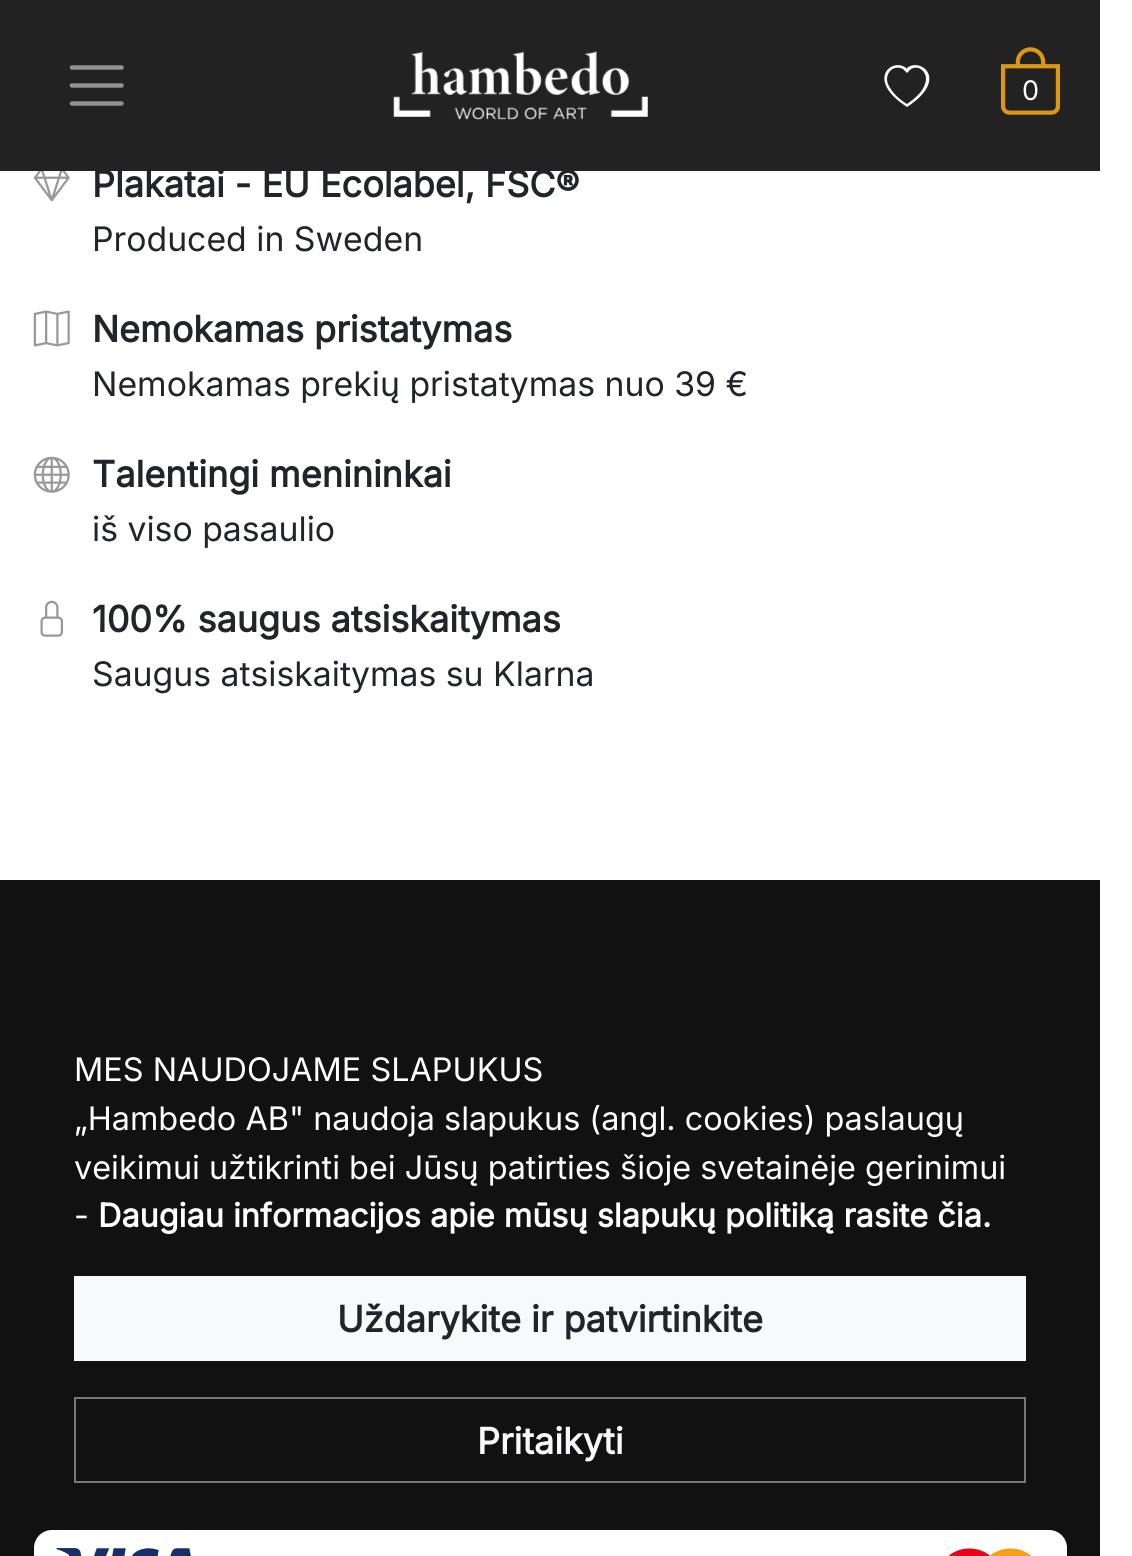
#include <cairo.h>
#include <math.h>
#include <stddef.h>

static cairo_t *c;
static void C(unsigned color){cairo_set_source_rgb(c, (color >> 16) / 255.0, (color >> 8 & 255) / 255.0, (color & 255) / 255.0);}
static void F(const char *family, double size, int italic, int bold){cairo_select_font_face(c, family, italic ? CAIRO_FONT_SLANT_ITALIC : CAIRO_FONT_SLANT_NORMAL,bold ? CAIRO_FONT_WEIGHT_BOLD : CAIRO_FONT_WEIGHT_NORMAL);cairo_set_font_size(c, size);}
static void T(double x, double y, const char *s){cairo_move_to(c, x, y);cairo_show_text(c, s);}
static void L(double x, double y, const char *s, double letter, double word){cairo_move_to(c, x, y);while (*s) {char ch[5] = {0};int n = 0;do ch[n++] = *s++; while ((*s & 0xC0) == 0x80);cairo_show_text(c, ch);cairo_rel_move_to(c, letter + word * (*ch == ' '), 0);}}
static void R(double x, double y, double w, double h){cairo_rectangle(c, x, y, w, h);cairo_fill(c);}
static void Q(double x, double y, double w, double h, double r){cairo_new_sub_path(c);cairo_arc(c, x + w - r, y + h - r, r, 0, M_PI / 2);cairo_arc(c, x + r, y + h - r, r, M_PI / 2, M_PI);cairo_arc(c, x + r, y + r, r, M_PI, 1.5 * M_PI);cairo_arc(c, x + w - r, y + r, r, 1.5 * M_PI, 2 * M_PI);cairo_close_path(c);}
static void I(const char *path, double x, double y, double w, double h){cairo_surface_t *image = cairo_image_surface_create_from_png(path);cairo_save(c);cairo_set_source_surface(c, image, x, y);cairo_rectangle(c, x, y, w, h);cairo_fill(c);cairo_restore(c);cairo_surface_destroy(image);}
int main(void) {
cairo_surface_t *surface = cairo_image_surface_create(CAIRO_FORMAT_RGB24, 1132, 1556);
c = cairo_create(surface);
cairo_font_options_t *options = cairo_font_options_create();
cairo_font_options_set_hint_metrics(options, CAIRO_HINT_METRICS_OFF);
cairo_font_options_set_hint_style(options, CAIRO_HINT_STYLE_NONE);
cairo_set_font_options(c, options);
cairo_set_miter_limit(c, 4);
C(0xffffff);
cairo_paint(c);
F("Inter",36,0,1);
C(0x212529);
T(92,197,"Plakatai - EU Ecolabel, FSC®");
C(0x222222);
R(0,0,1100,171);
cairo_new_path(c);
cairo_move_to(c,72,67.5);
cairo_line_to(c,121.5,67.5);
cairo_move_to(c,72,85.5);
cairo_line_to(c,121.5,85.5);
cairo_move_to(c,72,103.5);
cairo_line_to(c,121.5,103.5);
C(0x919191);
cairo_set_line_width(c,4.5);
cairo_set_line_cap(c,CAIRO_LINE_CAP_ROUND);
cairo_stroke(c);
I("1.png",393,51,255,69);
C(0xffffff);
cairo_new_path(c);
cairo_move_to(c,907,73);
cairo_line_to(c,903,69);
cairo_curve_to(c,893,64,884,74,888,84);
cairo_curve_to(c,892,93,899,99,907,104);
cairo_curve_to(c,914,99,922,93,925,84);
cairo_curve_to(c,929,74,920,64,911,69);
cairo_close_path(c);
cairo_move_to(c,907,107);
cairo_curve_to(c,864,79,893,57,906,68);
cairo_line_to(c,907,69);
cairo_line_to(c,907,68);
cairo_curve_to(c,920,57,950,79,907,107);
cairo_close_path(c);
cairo_fill(c);
I("2.png",1000,47,61,68);
F("Inter",27,0,0);
L(1022,100,"0",-1,0);
I("3.png",33,171,37,31);
F("Inter",33.75,0,0);
C(0x212529);
T(92,251,"Produced in Sweden");
I("4.png",33,310,37,37);
F("Inter",36,0,1);
T(92,342,"Nemokamas pristatymas");
F("Inter",33.75,0,0);
T(92,396,"Nemokamas prekių pristatymas nuo 39 €");
I("5.png",33,456,37,37);
F("Inter",36,0,1);
T(92,487,"Talentingi menininkai");
F("Inter",33.75,0,0);
T(92,541,"iš viso pasaulio");
I("6.png",40,600,23,37);
F("Inter",36,0,1);
T(92,632,"100% saugus atsiskaitymas");
F("Inter",33.75,0,0);
T(92,686,"Saugus atsiskaitymas su Klarna");
C(0x111111);
R(0,880,1100,676);
C(0xffffff);
Q(34,1530,1033,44,18);
cairo_fill(c);
I("7.png",56,1548,135,8);
I("8.png",948,1548,84,8);
F("Inter",32.4,0,0);
T(74,1081,"MES NAUDOJAME SLAPUKUS");
T(74,1130,"„Hambedo AB\" naudoja slapukus (angl. cookies) paslaugų");
T(74,1179,"veikimui užtikrinti bei Jūsų patirties šioje svetainėje gerinimui");
T(74,1227,"-");
F("Inter",32.4,0,1);
T(98,1227,"Daugiau informacijos apie mūsų slapukų politiką rasite čia.");
C(0xf8f9fa);
R(74,1276,952,85);
F("Inter",36,0,1);
C(0x212529);
T(337,1332,"Uždarykite ir patvirtinkite");
cairo_rectangle(c,75,1398,950,84);
C(0x787878);
cairo_set_line_width(c,2);
cairo_set_line_cap(c,CAIRO_LINE_CAP_BUTT);
cairo_stroke(c);
C(0xf8f9fa);
T(477,1454,"Pritaikyti");
cairo_surface_write_to_png(surface, "o.png");
cairo_font_options_destroy(options);
cairo_destroy(c);
cairo_surface_destroy(surface);
return 0;
}
